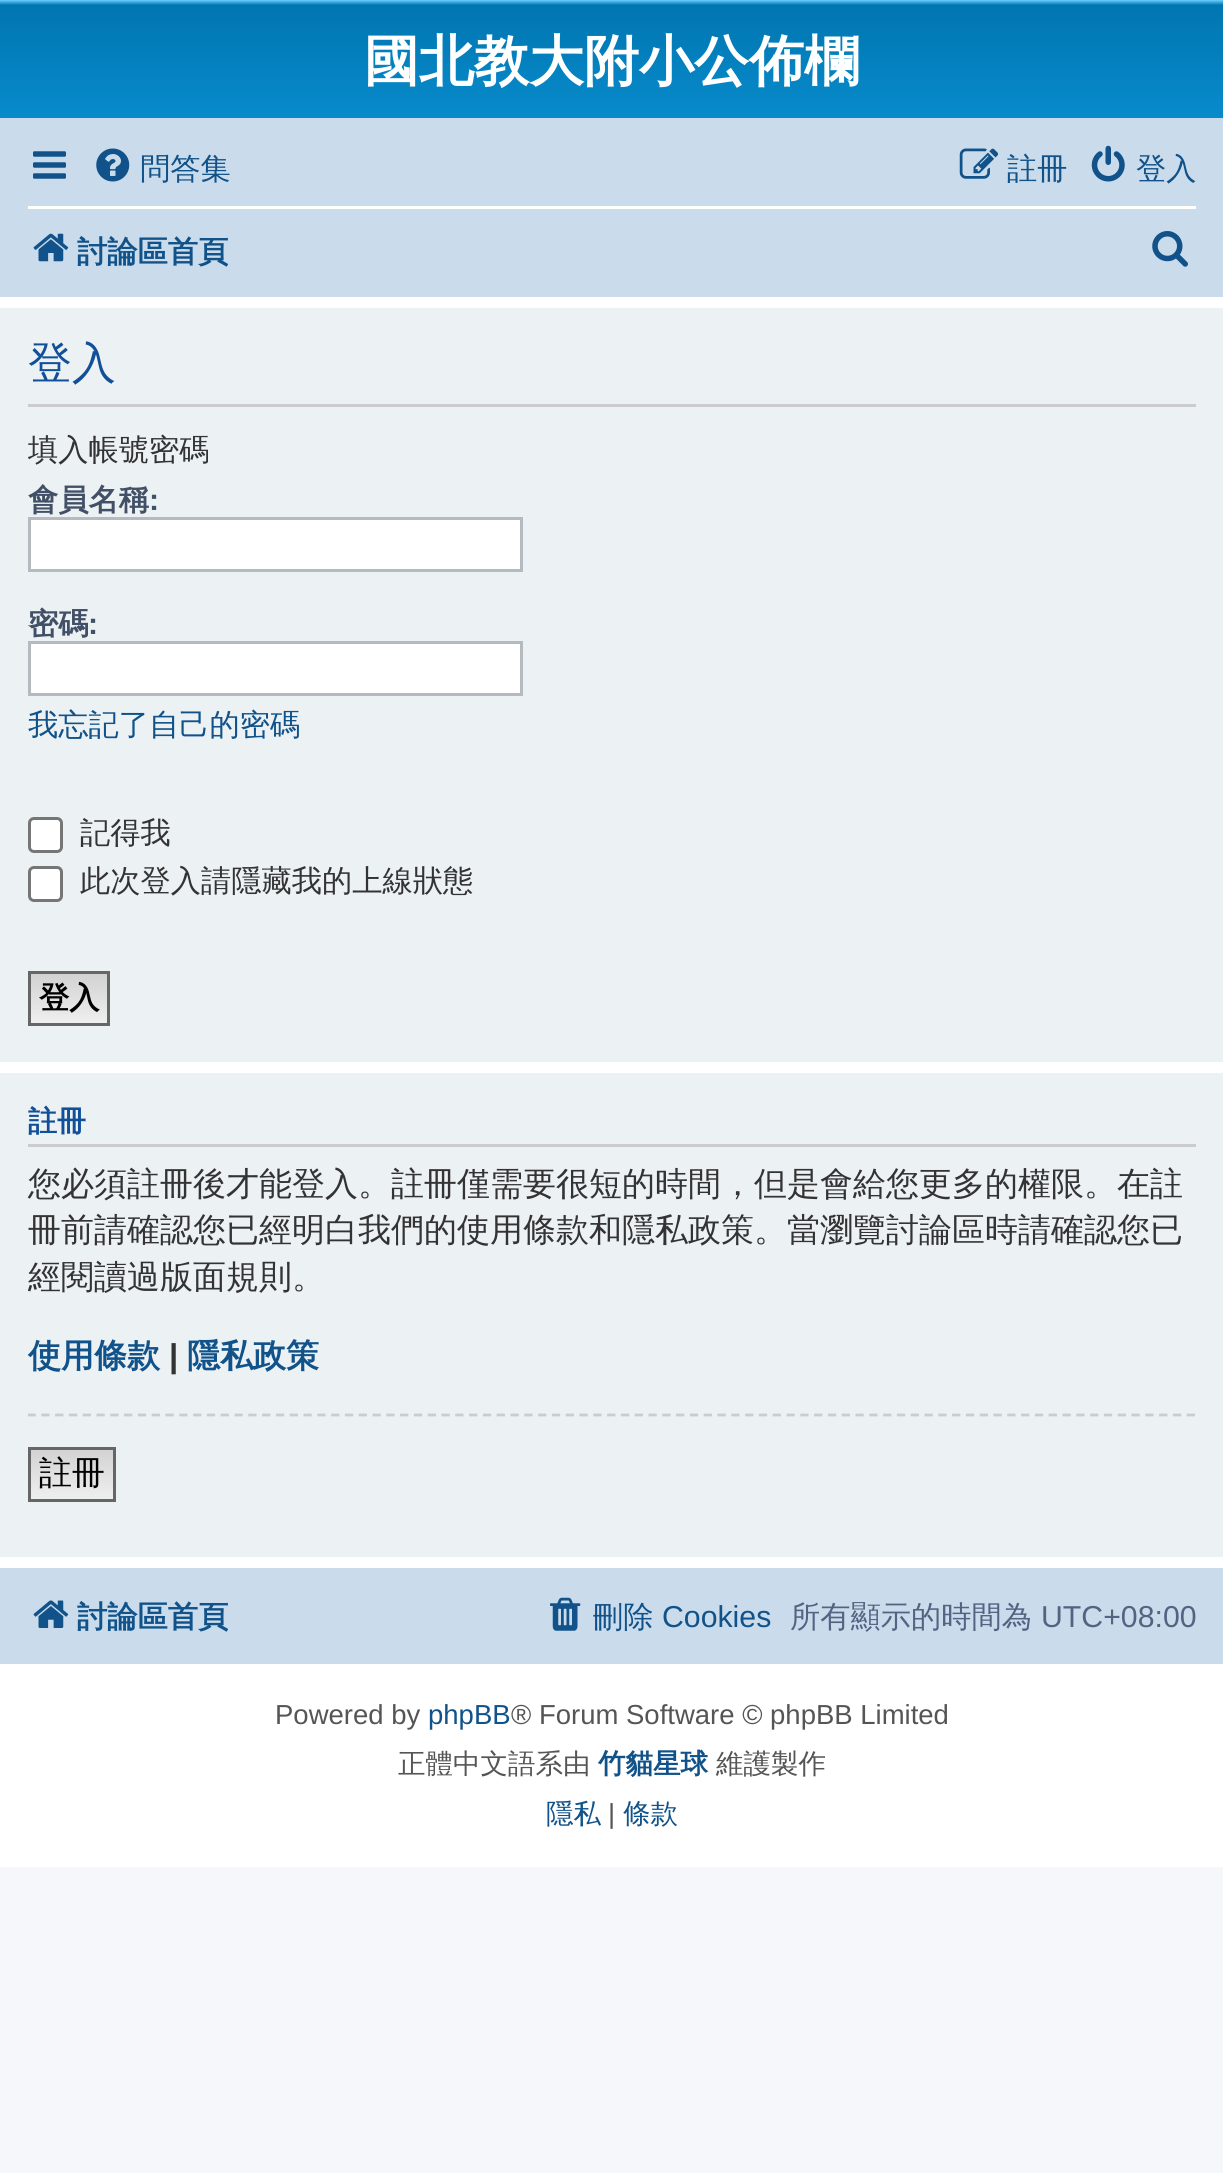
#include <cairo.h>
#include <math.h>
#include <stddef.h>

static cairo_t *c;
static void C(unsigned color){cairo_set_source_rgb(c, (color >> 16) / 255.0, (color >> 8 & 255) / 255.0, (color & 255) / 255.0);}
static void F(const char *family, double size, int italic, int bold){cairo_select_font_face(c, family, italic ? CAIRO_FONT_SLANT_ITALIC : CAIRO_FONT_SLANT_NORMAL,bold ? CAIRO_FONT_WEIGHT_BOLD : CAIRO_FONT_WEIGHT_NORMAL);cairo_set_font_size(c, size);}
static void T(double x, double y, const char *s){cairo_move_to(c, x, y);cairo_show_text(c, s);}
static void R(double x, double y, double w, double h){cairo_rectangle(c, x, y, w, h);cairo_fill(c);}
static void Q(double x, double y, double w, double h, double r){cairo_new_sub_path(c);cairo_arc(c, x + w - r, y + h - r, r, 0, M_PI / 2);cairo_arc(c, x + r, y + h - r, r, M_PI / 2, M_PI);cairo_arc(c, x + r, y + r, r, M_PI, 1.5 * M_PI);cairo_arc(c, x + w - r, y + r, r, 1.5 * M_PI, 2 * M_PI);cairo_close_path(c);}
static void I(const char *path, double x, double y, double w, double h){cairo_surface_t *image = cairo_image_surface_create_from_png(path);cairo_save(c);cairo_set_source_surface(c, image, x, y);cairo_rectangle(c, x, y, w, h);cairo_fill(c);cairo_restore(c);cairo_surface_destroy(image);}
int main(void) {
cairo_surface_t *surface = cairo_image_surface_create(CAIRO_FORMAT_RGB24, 1223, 2173);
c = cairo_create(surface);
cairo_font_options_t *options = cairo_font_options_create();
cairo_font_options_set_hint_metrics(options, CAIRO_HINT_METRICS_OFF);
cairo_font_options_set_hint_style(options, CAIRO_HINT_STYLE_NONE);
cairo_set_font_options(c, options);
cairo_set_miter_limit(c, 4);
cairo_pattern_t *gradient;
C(0xf5f7fa);
cairo_paint(c);
C(0xffffff);
R(0,297,1223,1570);
gradient = cairo_pattern_create_linear(612,0,612,253);
cairo_pattern_add_color_stop_rgba(gradient,0,0.416,0.808,1,1);
cairo_pattern_add_color_stop_rgba(gradient,.02,0,0.463,0.694,1);
cairo_pattern_add_color_stop_rgba(gradient,1,0.071,0.639,0.922,1);
cairo_set_source(c,gradient);
cairo_pattern_destroy(gradient);
R(0,0,1223,118);
F("WenQuanYi Zen Hei",55,0,1);
C(0xffffff);
T(364,80,"國北教大附小公佈欄");
C(0xcadceb);
R(0,118,1223,179);
I("1.png",33,151,33,28);
I("2.png",96,148,34,34);
F("WenQuanYi Zen Hei Medium",30.25,0,0);
C(0x105289);
T(140,179,"問答集");
I("3.png",959,148,39,31);
T(1007,179,"註冊");
I("4.png",1091,145,34,37);
T(1136,179,"登入");
C(0xffffff);
R(28,206,1168,3);
I("5.png",33,233,36,29);
F("WenQuanYi Zen Hei",30.25,0,1);
C(0x105289);
T(77,262,"討論區首頁");
I("6.png",1152,231,36,36);
C(0xecf1f3);
R(0,308,1223,754);
C(0xcccccc);
R(28,404,1168,3);
F("WenQuanYi Zen Hei Medium",44,0,0);
C(0x115098);
T(28,378,"登入");
cairo_save(c);
cairo_rectangle(c,28,322,1168,726);
cairo_clip(c);
F("WenQuanYi Zen Hei Medium",30.25,0,0);
C(0x333333);
T(28,460,"填入帳號密碼");
cairo_restore(c);
F("WenQuanYi Zen Hei",30.25,0,1);
C(0x425067);
T(28,510,"會員名稱");
F("Liberation Sans",30.25,0,1);
T(149,510,":");
C(0xffffff);
cairo_rectangle(c,29.5,518.5,492,52);
cairo_fill_preserve(c);
C(0xb4bac0);
cairo_set_line_width(c,3);
cairo_stroke(c);
F("WenQuanYi Zen Hei",30.25,0,1);
C(0x425067);
T(28,634,"密碼");
F("Liberation Sans",30.25,0,1);
T(88,634,":");
C(0xffffff);
cairo_rectangle(c,29.5,642.5,492,52);
cairo_fill_preserve(c);
C(0xb4bac0);
cairo_stroke(c);
F("WenQuanYi Zen Hei Medium",30.25,0,0);
C(0x105289);
T(28,735,"我忘記了自己的密碼");
C(0xffffff);
Q(29.5,818.5,32,33,4.5);
cairo_fill_preserve(c);
C(0x767676);
cairo_stroke(c);
C(0x333333);
T(80,843,"記得我");
C(0xffffff);
Q(29.5,867.5,32,33,4.5);
cairo_fill_preserve(c);
C(0x767676);
cairo_stroke(c);
C(0x333333);
T(80,891,"此次登入請隱藏我的上線狀態");
gradient = cairo_pattern_create_linear(69,974,69,1023);
cairo_pattern_add_color_stop_rgba(gradient,0,0.824,0.824,0.824,1);
cairo_pattern_add_color_stop_rgba(gradient,1,0.937,0.937,0.937,1);
cairo_set_source(c,gradient);
cairo_pattern_destroy(gradient);
R(31,974,76,49);
cairo_rectangle(c,29.5,972.5,79,52);
C(0x666666);
cairo_stroke(c);
F("WenQuanYi Zen Hei",30.25,0,1);
C(0x000000);
T(39,1008,"登入");
C(0xecf1f3);
R(0,1073,1223,484);
C(0xcccccc);
R(28,1144,1168,3);
F("WenQuanYi Zen Hei",29,0,1);
C(0x115098);
T(28,1131,"註冊");
F("WenQuanYi Zen Hei Medium",33,0,0);
C(0x333333);
T(28,1195,"您必須註冊後才能登入。註冊僅需要很短的時間，但是會給您更多的權限。在註");
T(28,1241,"冊前請確認您已經明白我們的使用條款和隱私政策。當瀏覽討論區時請確認您已");
T(28,1288,"經閱讀過版面規則。");
F("WenQuanYi Zen Hei",33,0,1);
C(0x105289);
T(28,1367,"使用條款");
F("Liberation Sans",33,0,1);
C(0x333333);
T(169,1367,"|");
F("WenQuanYi Zen Hei",33,0,1);
C(0x105289);
T(187,1367,"隱私政策");
cairo_save(c);
cairo_rectangle(c,28,1086,1168,457);
cairo_clip(c);
cairo_new_path(c);
cairo_move_to(c,27.5,1415);
cairo_line_to(c,1196,1415);
C(0xcccccc);
cairo_set_line_width(c,2.8);
cairo_set_dash(c,(double[]){8.25,5.55},2,0);
cairo_stroke(c);
cairo_restore(c);
gradient = cairo_pattern_create_linear(72,1449,72,1499);
cairo_pattern_add_color_stop_rgba(gradient,0,0.824,0.824,0.824,1);
cairo_pattern_add_color_stop_rgba(gradient,1,0.937,0.937,0.937,1);
cairo_set_source(c,gradient);
cairo_pattern_destroy(gradient);
R(31,1450,82,49);
cairo_rectangle(c,29.5,1448.5,85,52);
C(0x666666);
cairo_stroke(c);
F("WenQuanYi Zen Hei Medium",33,0,0);
C(0x000000);
T(39,1484,"註冊");
C(0xcadceb);
R(0,1568,1223,96);
I("7.png",33,1600,36,28);
F("WenQuanYi Zen Hei",30.25,0,1);
C(0x105289);
T(77,1627,"討論區首頁");
I("8.png",550,1597,31,34);
F("WenQuanYi Zen Hei Medium",30.25,0,0);
T(593,1627,"刪除");
F("Liberation Sans",30.25,0,0);
T(662,1627,"Cookies");
F("WenQuanYi Zen Hei Medium",30.25,0,0);
C(0x536482);
T(790,1627,"所有顯示的時間為");
F("Liberation Sans",30.25,0,0);
T(1041,1627,"UTC+08:00");
F("Liberation Sans",27.5,0,0);
C(0x555555);
T(275,1724,"Powered by");
C(0x105289);
T(428,1724,"phpBB");
C(0x555555);
T(511,1724,"® Forum Software © phpBB Limited");
F("WenQuanYi Zen Hei Medium",27.5,0,0);
T(398,1773,"正體中文語系由");
F("WenQuanYi Zen Hei",27.5,0,1);
C(0x105289);
T(598,1773,"竹貓星球");
F("WenQuanYi Zen Hei Medium",27.5,0,0);
C(0x555555);
T(716,1773,"維護製作");
C(0x105289);
T(546,1823,"隱私");
F("Liberation Sans",27.5,0,0);
C(0x555555);
T(608,1823,"|");
F("WenQuanYi Zen Hei Medium",27.5,0,0);
C(0x105289);
T(623,1823,"條款");
cairo_surface_write_to_png(surface, "o.png");
cairo_font_options_destroy(options);
cairo_destroy(c);
cairo_surface_destroy(surface);
return 0;
}
